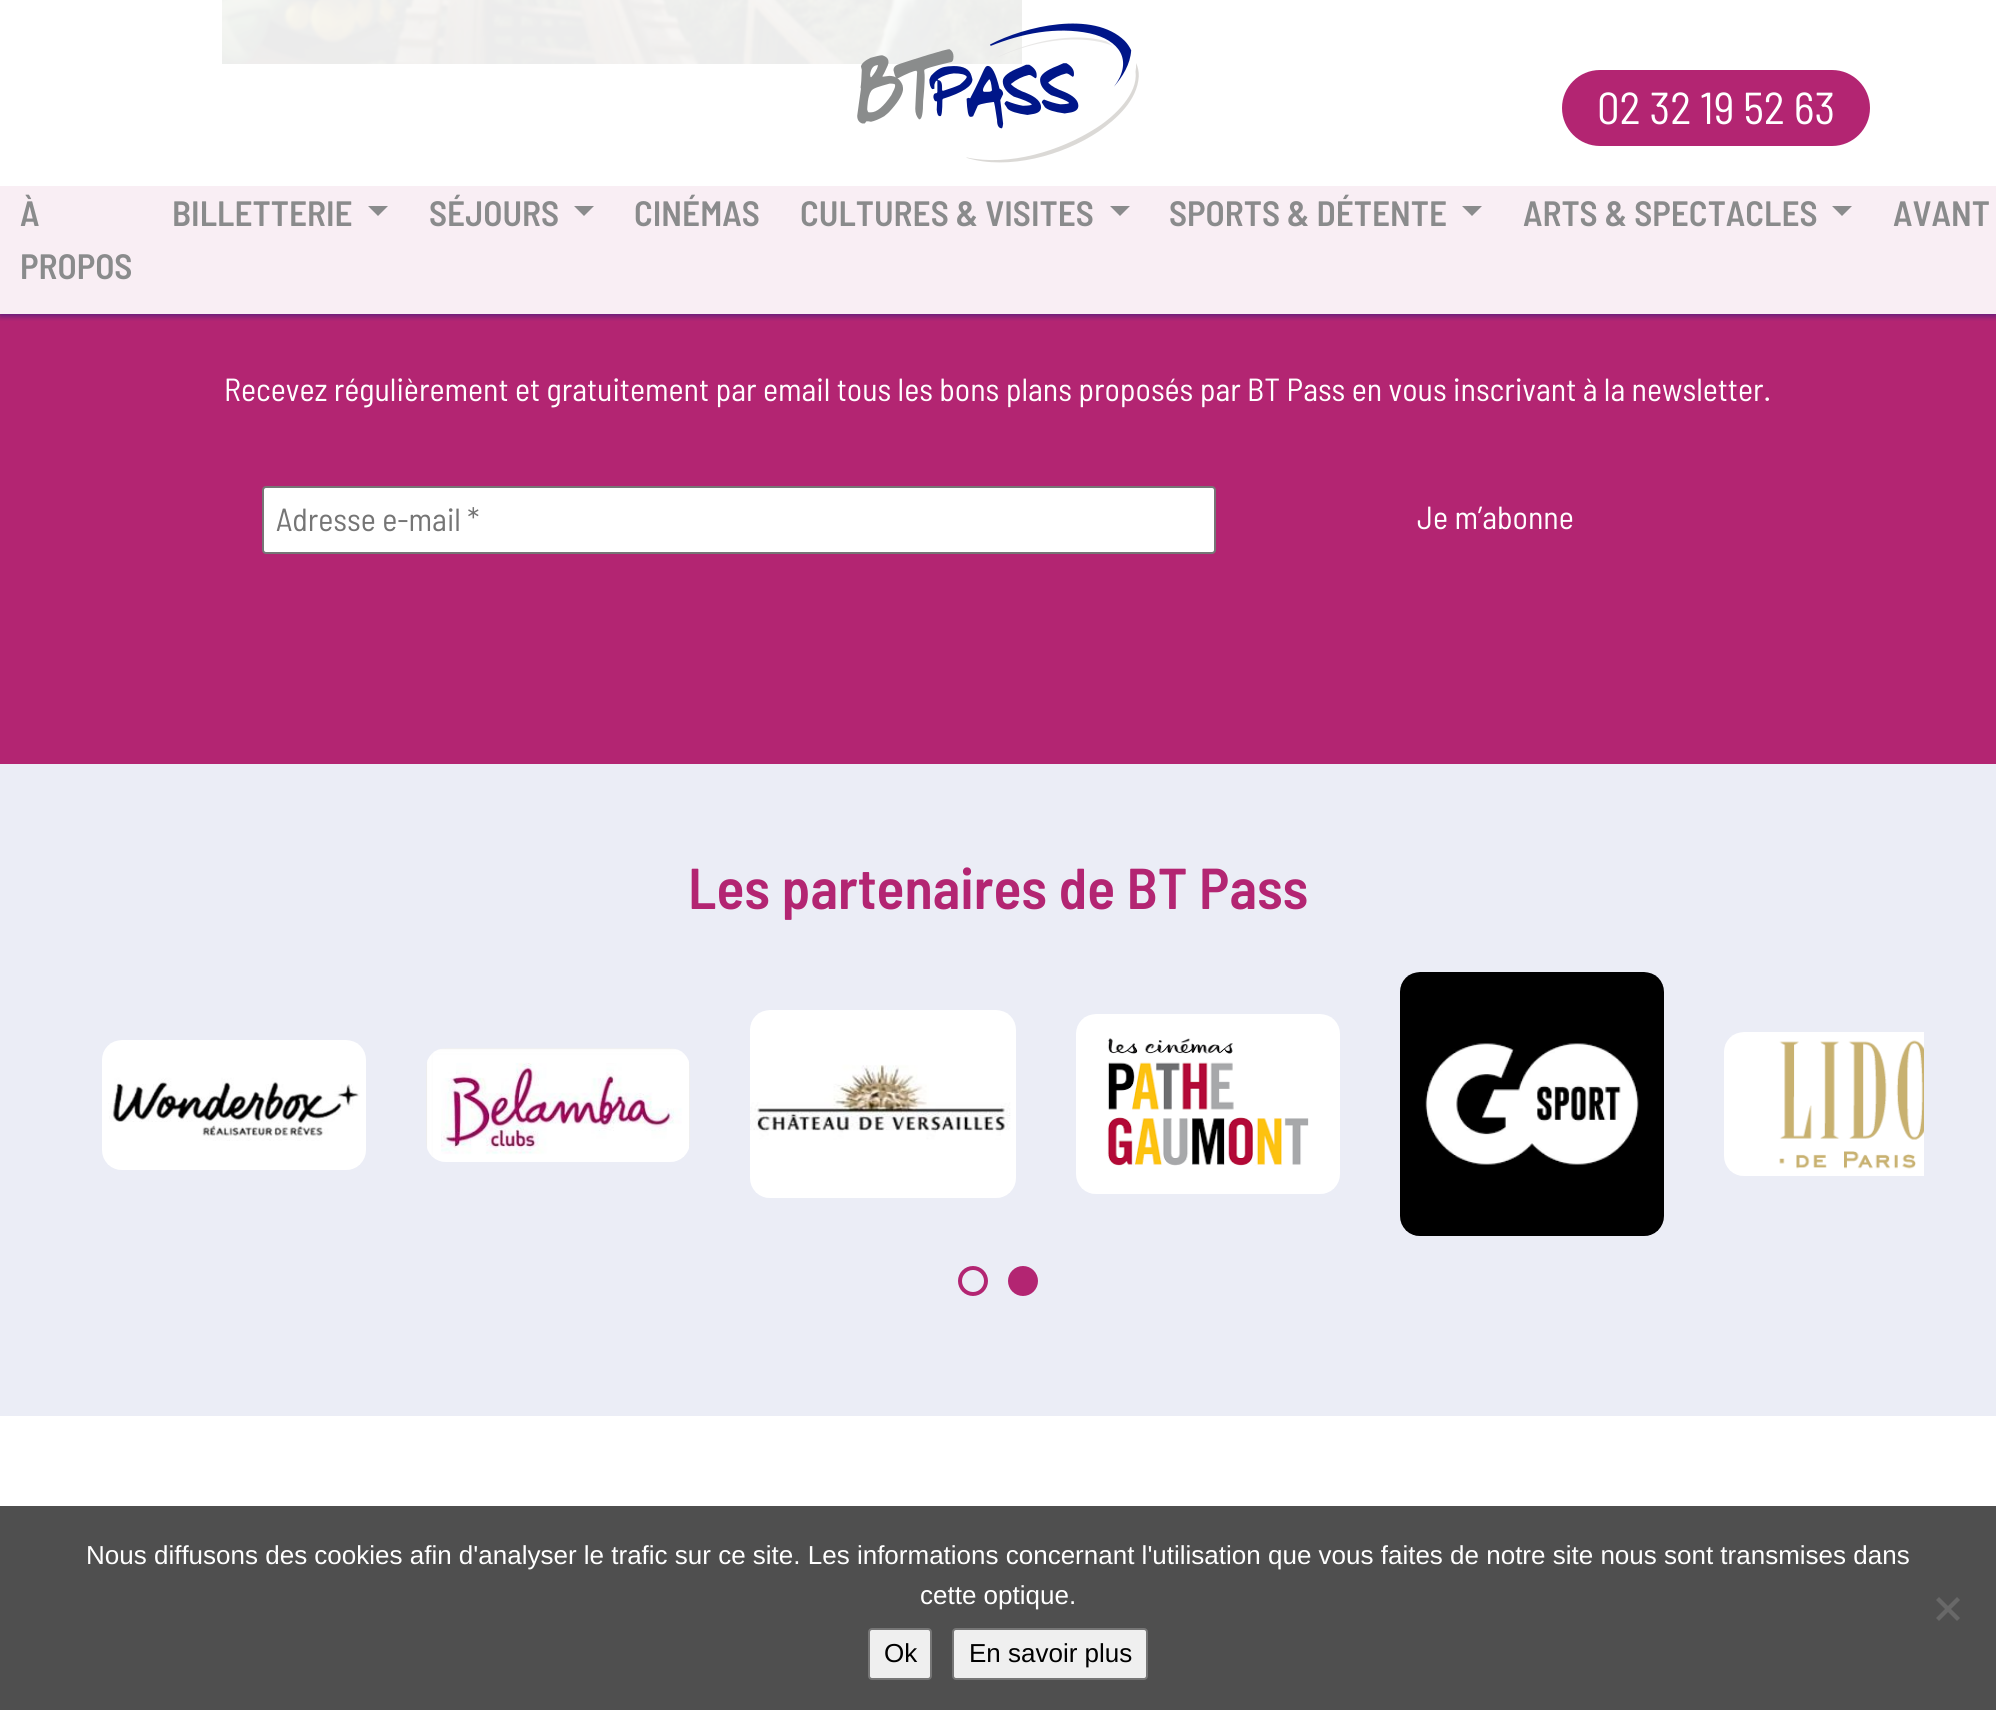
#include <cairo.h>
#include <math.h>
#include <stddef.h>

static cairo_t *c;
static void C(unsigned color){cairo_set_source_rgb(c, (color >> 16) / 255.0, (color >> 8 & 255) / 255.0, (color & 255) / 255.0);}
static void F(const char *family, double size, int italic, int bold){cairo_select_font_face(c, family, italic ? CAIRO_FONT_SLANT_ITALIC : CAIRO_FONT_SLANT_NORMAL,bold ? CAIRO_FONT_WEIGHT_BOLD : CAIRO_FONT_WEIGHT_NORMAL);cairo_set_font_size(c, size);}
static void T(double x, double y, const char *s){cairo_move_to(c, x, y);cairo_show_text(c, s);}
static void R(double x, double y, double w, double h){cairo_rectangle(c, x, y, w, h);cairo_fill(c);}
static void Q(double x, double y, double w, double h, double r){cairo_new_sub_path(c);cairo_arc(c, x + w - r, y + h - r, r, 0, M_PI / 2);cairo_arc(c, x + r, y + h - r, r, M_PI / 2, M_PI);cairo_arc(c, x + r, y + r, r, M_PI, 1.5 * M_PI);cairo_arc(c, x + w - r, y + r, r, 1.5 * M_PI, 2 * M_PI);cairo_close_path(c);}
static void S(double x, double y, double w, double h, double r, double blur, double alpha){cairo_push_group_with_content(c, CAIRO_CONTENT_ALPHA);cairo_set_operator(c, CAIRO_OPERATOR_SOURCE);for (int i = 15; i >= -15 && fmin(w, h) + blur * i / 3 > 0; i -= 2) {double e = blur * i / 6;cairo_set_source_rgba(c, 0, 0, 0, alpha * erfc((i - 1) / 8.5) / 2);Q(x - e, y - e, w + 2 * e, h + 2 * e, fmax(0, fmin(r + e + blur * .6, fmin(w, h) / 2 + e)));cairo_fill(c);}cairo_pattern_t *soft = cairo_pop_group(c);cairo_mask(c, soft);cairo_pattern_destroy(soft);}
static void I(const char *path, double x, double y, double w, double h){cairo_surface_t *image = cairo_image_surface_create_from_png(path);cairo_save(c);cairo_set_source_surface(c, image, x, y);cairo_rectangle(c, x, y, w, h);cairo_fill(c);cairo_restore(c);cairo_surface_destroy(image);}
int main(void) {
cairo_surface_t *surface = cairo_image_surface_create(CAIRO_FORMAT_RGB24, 1996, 1710);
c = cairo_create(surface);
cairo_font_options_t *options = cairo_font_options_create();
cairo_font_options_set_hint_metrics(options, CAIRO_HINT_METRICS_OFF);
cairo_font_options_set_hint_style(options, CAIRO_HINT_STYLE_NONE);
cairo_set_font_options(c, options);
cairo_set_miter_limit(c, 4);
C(0xffffff);
cairo_paint(c);
I("2.png",222,0,800,64);
C(0xb32572);
R(0,186,1996,578);
cairo_save(c);
cairo_rectangle(c,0,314,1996,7);
cairo_clip(c);
C(0x001588);
S(0,2,1996,314,0,3,.5);
cairo_restore(c);
cairo_set_source_rgba(c,1,1,1,0.92);
R(0,0,1996,314);
I("1.png",857,23,282,140);
C(0xb32572);
Q(1564,72,304,72,36);
cairo_fill_preserve(c);
cairo_set_line_width(c,4);
cairo_stroke(c);
F("Barlow Semi Condensed",44.75,0,0);
C(0xffffff);
T(1597,124,"02 32 19 52 63");
F("Barlow Semi Condensed SemiBold",35.25,0,0);
C(0x8a8b8c);
T(20,226,"À");
T(20,279,"PROPOS");
T(172,226,"BILLETTERIE");
cairo_new_path(c);
cairo_move_to(c,368,206);
cairo_line_to(c,388,206);
cairo_line_to(c,378,216);
cairo_close_path(c);
cairo_fill(c);
T(429,226,"SÉJOURS");
cairo_new_path(c);
cairo_move_to(c,574,206);
cairo_line_to(c,594,206);
cairo_line_to(c,584,216);
cairo_close_path(c);
cairo_fill(c);
T(634,226,"CINÉMAS");
T(800,226,"CULTURES & VISITES");
cairo_new_path(c);
cairo_move_to(c,1110,206);
cairo_line_to(c,1130,206);
cairo_line_to(c,1120,216);
cairo_close_path(c);
cairo_fill(c);
T(1169,226,"SPORTS & DÉTENTE");
cairo_new_path(c);
cairo_move_to(c,1462,206);
cairo_line_to(c,1482,206);
cairo_line_to(c,1472,216);
cairo_close_path(c);
cairo_fill(c);
T(1523,226,"ARTS & SPECTACLES");
cairo_new_path(c);
cairo_move_to(c,1832,206);
cairo_line_to(c,1852,206);
cairo_line_to(c,1842,216);
cairo_close_path(c);
cairo_fill(c);
T(1893,226,"AVANT");
F("Barlow Semi Condensed",32,0,0);
C(0xffffff);
T(224,401,"Recevez régulièrement et gratuitement par email tous les bons plans proposés par BT Pass en vous inscrivant à la newsletter.");
Q(263,487,952,66,3);
cairo_fill_preserve(c);
C(0x767676);
cairo_set_line_width(c,2);
cairo_stroke(c);
C(0x757575);
T(276,531,"Adresse e-mail *");
C(0xffffff);
T(1417,529,"Je m’abonne");
C(0xebedf6);
R(0,764,1996,652);
F("Barlow Semi Condensed SemiBold",57.6,0,0);
C(0xb32572);
T(688,909,"Les partenaires de BT Pass");
I("3.png",102,1040,264,130);
I("4.png",426,1048,264,114);
I("5.png",750,1010,266,188);
I("6.png",1076,1014,264,180);
I("7.png",1400,972,264,264);
I("8.png",1724,1032,200,144);
cairo_arc(c,973,1281,13,0,2 * M_PI);
cairo_set_line_width(c,4);
cairo_stroke(c);
cairo_arc(c,1023,1281,13,0,2 * M_PI);
cairo_fill_preserve(c);
cairo_stroke(c);
C(0x4f4f4f);
R(0,1506,1996,204);
F("Liberation Sans",26,0,0);
C(0xffffff);
T(86,1564,"Nous diffusons des cookies afin d'analyser le trafic sur ce site. Les informations concernant l'utilisation que vous faites de notre site nous sont transmises dans");
T(920,1604,"cette optique.");
C(0x686868);
cairo_new_path(c);
cairo_move_to(c,1957,1597);
cairo_line_to(c,1960,1600);
cairo_line_to(c,1939,1621);
cairo_line_to(c,1936,1618);
cairo_close_path(c);
cairo_fill(c);
cairo_new_path(c);
cairo_move_to(c,1936,1600);
cairo_line_to(c,1939,1597);
cairo_line_to(c,1960,1618);
cairo_line_to(c,1957,1621);
cairo_close_path(c);
cairo_fill(c);
C(0xefefef);
Q(869,1629,62,50,3);
cairo_fill_preserve(c);
C(0x767676);
cairo_set_line_width(c,2);
cairo_stroke(c);
C(0x000000);
T(884,1662,"Ok");
C(0xefefef);
Q(953,1629,194,50,3);
cairo_fill_preserve(c);
C(0x767676);
cairo_stroke(c);
C(0x000000);
T(969,1662,"En savoir plus");
cairo_surface_write_to_png(surface, "o.png");
cairo_font_options_destroy(options);
cairo_destroy(c);
cairo_surface_destroy(surface);
return 0;
}
